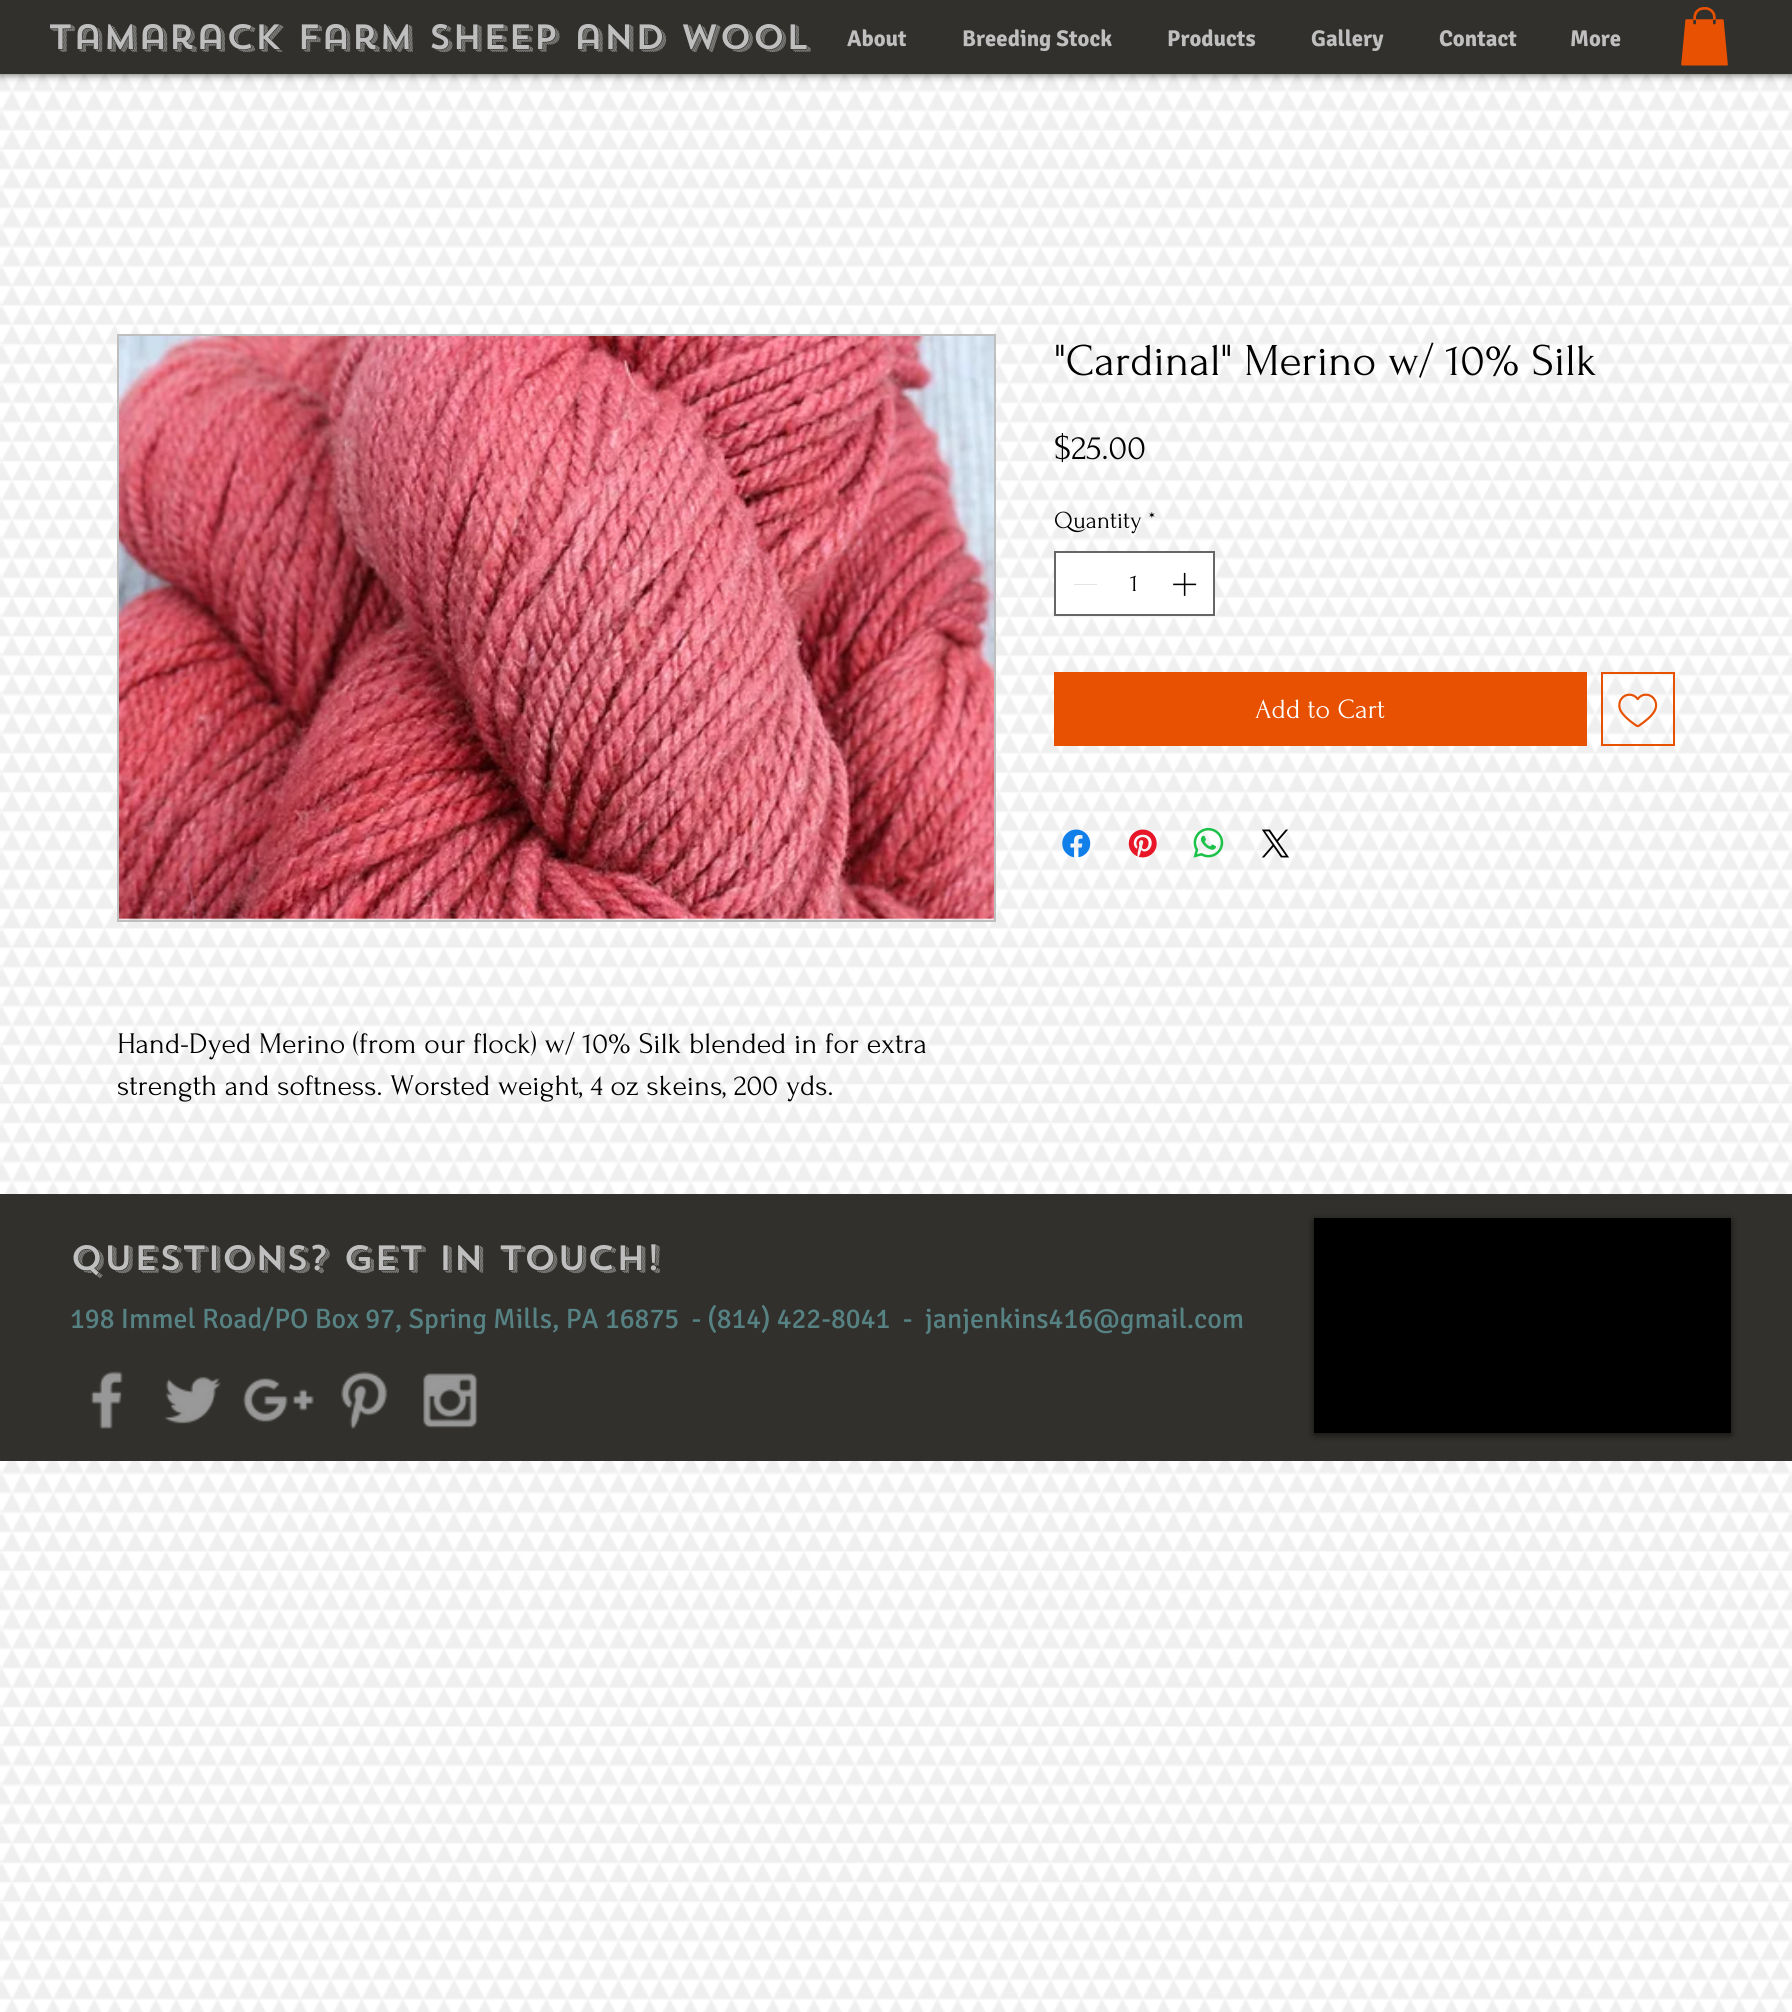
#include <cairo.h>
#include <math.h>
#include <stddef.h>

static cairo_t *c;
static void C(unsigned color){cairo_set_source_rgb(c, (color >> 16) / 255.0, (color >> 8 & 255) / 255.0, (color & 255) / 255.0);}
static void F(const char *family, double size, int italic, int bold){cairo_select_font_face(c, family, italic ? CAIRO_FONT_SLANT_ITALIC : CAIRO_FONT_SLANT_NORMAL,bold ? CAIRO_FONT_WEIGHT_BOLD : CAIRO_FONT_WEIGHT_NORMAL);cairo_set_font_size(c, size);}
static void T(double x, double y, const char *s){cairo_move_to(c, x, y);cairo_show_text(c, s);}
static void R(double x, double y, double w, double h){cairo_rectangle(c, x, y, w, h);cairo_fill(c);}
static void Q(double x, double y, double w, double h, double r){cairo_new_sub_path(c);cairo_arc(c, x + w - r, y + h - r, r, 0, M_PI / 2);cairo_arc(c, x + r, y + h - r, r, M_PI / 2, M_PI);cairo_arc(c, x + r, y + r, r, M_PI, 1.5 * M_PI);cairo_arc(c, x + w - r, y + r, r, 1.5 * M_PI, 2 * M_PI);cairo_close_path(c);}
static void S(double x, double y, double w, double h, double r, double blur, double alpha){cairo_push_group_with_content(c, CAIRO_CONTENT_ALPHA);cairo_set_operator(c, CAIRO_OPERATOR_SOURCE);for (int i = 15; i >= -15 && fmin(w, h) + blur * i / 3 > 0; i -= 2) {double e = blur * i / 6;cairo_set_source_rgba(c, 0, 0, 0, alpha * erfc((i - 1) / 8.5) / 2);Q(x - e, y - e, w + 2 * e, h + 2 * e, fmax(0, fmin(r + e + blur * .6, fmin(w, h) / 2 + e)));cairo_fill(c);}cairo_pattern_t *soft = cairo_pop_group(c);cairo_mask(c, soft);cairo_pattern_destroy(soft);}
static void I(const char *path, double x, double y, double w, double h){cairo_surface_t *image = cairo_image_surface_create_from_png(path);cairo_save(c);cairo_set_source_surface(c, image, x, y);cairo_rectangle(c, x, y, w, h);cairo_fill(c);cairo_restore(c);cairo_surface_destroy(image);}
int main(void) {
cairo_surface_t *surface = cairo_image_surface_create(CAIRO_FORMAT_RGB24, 1792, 2012);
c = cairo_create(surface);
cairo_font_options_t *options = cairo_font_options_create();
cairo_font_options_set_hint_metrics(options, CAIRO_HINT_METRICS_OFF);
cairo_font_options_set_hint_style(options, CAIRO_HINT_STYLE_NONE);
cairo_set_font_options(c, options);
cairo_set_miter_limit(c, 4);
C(0xffffff);
cairo_paint(c);
I("14.png",0,74,1792,1938);
C(0x000000);
S(0,-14,1792,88,0,4.5,.7);
C(0x31302c);
R(0,0,1792,74);
F("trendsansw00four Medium",35,0,0);
C(0xbfbfbf);
T(48,49,"Tamarack Farm Sheep and Wool");
F("Signika",22.75,0,1);
T(847,46,"About");
T(962,46,"Breeding Stock");
T(1167,46,"Products");
T(1311,46,"Gallery");
T(1439,46,"Contact");
T(1570,46,"More");
I("1.png",1681,7,47,59);
F("Forum",45.5,0,0);
C(0x000000);
T(1054,375,"\"Cardinal\" Merino w/ 10% Silk");
F("Forum",35,0,0);
T(1054,459,"$25.00");
F("Forum",24.5,0,0);
T(1054,528,"Quantity");
T(1148,528,"*");
C(0xffffff);
cairo_rectangle(c,1055,552,159,63);
cairo_fill_preserve(c);
C(0x666666);
cairo_stroke(c);
C(0xe3e3e3);
R(1074,584,23,1);
C(0x000000);
T(1130,591,"1");
I("2.png",1173,572,24,24);
C(0xe75101);
R(1054,672,533,74);
F("Forum",28,0,0);
C(0xffffff);
T(1255,718,"Add to Cart");
cairo_rectangle(c,1602,673,72,72);
C(0xe75101);
cairo_stroke(c);
I("3.png",1618,693,40,35);
I("4.png",1062,829,29,29);
I("5.png",1128,829,29,29);
I("6.png",1193,827,31,31);
I("7.png",1261,829,28,29);
cairo_rectangle(c,118,335,877,586);
C(0xbfbfbf);
cairo_stroke(c);
I("8.png",119,336,875,584);
F("Forum",29.75,0,0);
C(0x000000);
T(117,1053,"Hand-Dyed Merino (from our flock) w/ 10% Silk blended in for extra");
T(117,1095,"strength and softness. Worsted weight, 4 oz skeins, 200 yds.");
C(0x31302c);
R(0,1194,1792,267);
C(0x000000);
S(1314,1220,417,215,0,3.5,.6);
C(0x000000);
R(1314,1218,417,215);
F("trendsansw00four Medium",35,0,0);
C(0xbfbfbf);
T(70,1270,"Questions? Get in touch!");
F("Signika",28,0,0);
C(0x578284);
T(70,1328,"198 Immel Road/PO Box 97, Spring Mills, PA 16875  - (814) 422-8041  -");
T(925,1328,"janjenkins416@gmail.com");
I("9.png",90,1371,33,58);
I("10.png",164,1376,57,48);
I("11.png",243,1377,71,46);
I("12.png",341,1371,47,58);
I("13.png",423,1373,55,55);
cairo_surface_write_to_png(surface, "o.png");
cairo_font_options_destroy(options);
cairo_destroy(c);
cairo_surface_destroy(surface);
return 0;
}
